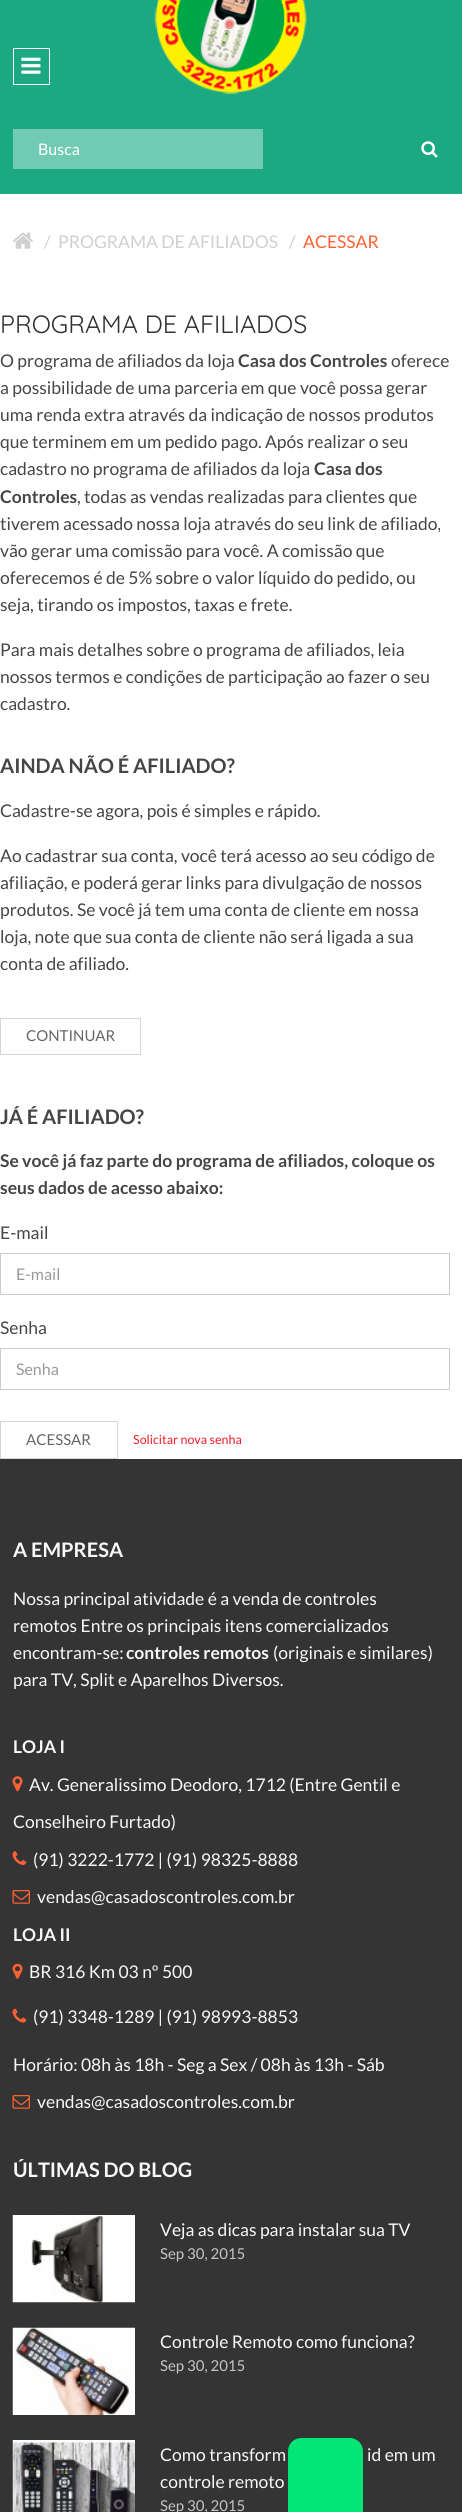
#include <cairo.h>
#include <math.h>
#include <stddef.h>

static cairo_t *c;
static void C(unsigned color){cairo_set_source_rgb(c, (color >> 16) / 255.0, (color >> 8 & 255) / 255.0, (color & 255) / 255.0);}
static void F(const char *family, double size, int italic, int bold){cairo_select_font_face(c, family, italic ? CAIRO_FONT_SLANT_ITALIC : CAIRO_FONT_SLANT_NORMAL,bold ? CAIRO_FONT_WEIGHT_BOLD : CAIRO_FONT_WEIGHT_NORMAL);cairo_set_font_size(c, size);}
static void T(double x, double y, const char *s){cairo_move_to(c, x, y);cairo_show_text(c, s);}
static void R(double x, double y, double w, double h){cairo_rectangle(c, x, y, w, h);cairo_fill(c);}
static void I(const char *path, double x, double y, double w, double h){cairo_surface_t *image = cairo_image_surface_create_from_png(path);cairo_save(c);cairo_set_source_surface(c, image, x, y);cairo_rectangle(c, x, y, w, h);cairo_fill(c);cairo_restore(c);cairo_surface_destroy(image);}
int main(void) {
cairo_surface_t *surface = cairo_image_surface_create(CAIRO_FORMAT_RGB24, 462, 2512);
c = cairo_create(surface);
cairo_font_options_t *options = cairo_font_options_create();
cairo_font_options_set_hint_metrics(options, CAIRO_HINT_METRICS_OFF);
cairo_font_options_set_hint_style(options, CAIRO_HINT_STYLE_NONE);
cairo_set_font_options(c, options);
cairo_set_miter_limit(c, 4);
C(0xffffff);
cairo_paint(c);
C(0x1aa982);
R(0,0,462,194);
cairo_rectangle(c,13.5,48.5,36,36);
C(0xffffff);
cairo_set_line_width(c,1);
cairo_stroke(c);
I("1.png",21,57,20,17);
I("2.png",154,0,153,95);
C(0x71cab2);
R(13,129,250,40);
F("Lato",16,0,0);
C(0xffffff);
T(38,155,"Busca");
I("3.png",421,141,17,17);
I("4.png",13,232,20,17);
F("Lato",17.5,0,0);
C(0xd0d0d0);
T(44,248,"/");
T(58,248,"PROGRAMA DE AFILIADOS");
T(289,248,"/");
C(0xff6132);
T(303,248,"ACESSAR");
F("Quicksand",25,0,0);
C(0x303030);
T(0,333,"PROGRAMA DE AFILIADOS");
F("Lato",17.5,0,0);
C(0x454545);
T(0,367,"O programa de afiliados da loja");
F("Lato",17.5,0,1);
T(238,367,"Casa dos Controles");
F("Lato",17.5,0,0);
T(391,367,"oferece");
T(0,394,"a possibilidade de uma parceria em que você possa gerar");
T(0,421,"uma renda extra através da indicação de nossos produtos");
T(0,448,"que terminem em um pedido pago. Após realizar o seu");
T(0,475,"cadastro no programa de afiliados da loja");
F("Lato",17.5,0,1);
T(314,475,"Casa dos");
T(0,503,"Controles");
F("Lato",17.5,0,0);
T(77,503,", todas as vendas realizadas para clientes que");
T(0,530,"tiverem acessado nossa loja através do seu link de afiliado,");
T(0,557,"vão gerar uma comissão para você. A comissão que");
T(0,584,"oferecemos é de 5% sobre o valor líquido do pedido, ou");
T(0,611,"seja, tirando os impostos, taxas e frete.");
T(0,656,"Para mais detalhes sobre o programa de afiliados, leia");
T(0,683,"nossos termos e condições de participação ao fazer o seu");
T(0,710,"cadastro.");
F("Lato",20,0,1);
T(0,773,"AINDA NÃO É AFILIADO?");
F("Lato",17.5,0,0);
T(0,817,"Cadastre-se agora, pois é simples e rápido.");
T(0,862,"Ao cadastrar sua conta, você terá acesso ao seu código de");
T(0,889,"afiliação, e poderá gerar links para divulgação de nossos");
T(0,916,"produtos. Se você já tem uma conta de cliente em nossa");
T(0,943,"loja, note que sua conta de cliente não será ligada a sua");
T(0,970,"conta de afiliado.");
cairo_rectangle(c,.5,1018.5,140,36);
C(0xd6d6d6);
cairo_stroke(c);
F("Lato",15,0,0);
C(0x666666);
T(26,1041,"CONTINUAR");
F("Lato",20,0,1);
C(0x454545);
T(0,1124,"JÁ É AFILIADO?");
F("Lato",17.5,0,1);
T(0,1167,"Se você já faz parte do programa de afiliados, coloque os");
T(0,1194,"seus dados de acesso abaixo:");
F("Lato",17.5,0,0);
T(0,1239,"E-mail");
cairo_rectangle(c,.5,1253.5,449,41);
C(0xcccccc);
cairo_stroke(c);
F("Lato",16,0,0);
C(0x999999);
T(16,1280,"E-mail");
F("Lato",17.5,0,0);
C(0x454545);
T(0,1334,"Senha");
cairo_rectangle(c,.5,1348.5,449,41);
C(0xcccccc);
cairo_stroke(c);
F("Lato",16,0,0);
C(0x999999);
T(16,1375,"Senha");
cairo_rectangle(c,.5,1421.5,117,37);
C(0xd6d6d6);
cairo_stroke(c);
F("Lato",15,0,0);
C(0x666666);
T(26,1445,"ACESSAR");
F("Lato",12.5,0,0);
C(0xed1c24);
T(133,1444,"Solicitar nova senha");
C(0x343434);
R(0,1459,462,1053);
F("Lato",20,0,1);
C(0xf8f8f8);
T(13,1557,"A EMPRESA");
F("Lato",17.5,0,0);
T(13,1605,"Nossa principal atividade é a venda de controles");
T(13,1632,"remotos Entre os principais itens comercializados");
T(13,1659,"encontram-se:");
F("Lato",17.5,0,1);
T(126,1659,"controles remotos");
F("Lato",17.5,0,0);
T(273,1659,"(originais e similares)");
T(13,1686,"para TV, Split e Aparelhos Diversos.");
F("Lato",17.5,0,1);
T(13,1753,"LOJA I");
I("5.png",12,1776,11,16);
F("Lato",17.5,0,0);
T(29,1791,"Av. Generalissimo Deodoro, 1712 (Entre Gentil e");
T(13,1828,"Conselheiro Furtado)");
I("6.png",12,1851,15,14);
T(33,1866,"(91) 3222-1772 | (91) 98325-8888");
I("7.png",12,1890,18,14);
T(37,1903,"vendas@casadoscontroles.com.br");
F("Lato",17.5,0,1);
T(13,1941,"LOJA II");
I("8.png",12,1963,11,16);
F("Lato",17.5,0,0);
T(29,1978,"BR 316 Km 03 nº 500");
I("9.png",12,2008,15,15);
T(33,2023,"(91) 3348-1289 | (91) 98993-8853");
T(13,2071,"Horário: 08h às 18h - Seg a Sex / 08h às 13h - Sáb");
I("7.png",12,2095,18,14);
T(37,2108,"vendas@casadoscontroles.com.br");
F("Lato",20,0,1);
T(13,2177,"ÚLTIMAS DO BLOG");
I("10.png",12,2215,123,88);
F("Lato",17.5,0,0);
T(160,2236,"Veja as dicas para instalar sua TV");
F("Lato",15,0,0);
C(0xc5c5c5);
T(160,2259,"Sep 30, 2015");
I("11.png",12,2327,123,88);
F("Lato",17.5,0,0);
C(0xf8f8f8);
T(160,2348,"Controle Remoto como funciona?");
F("Lato",15,0,0);
C(0xc5c5c5);
T(160,2371,"Sep 30, 2015");
I("12.png",12,2440,123,72);
F("Lato",17.5,0,0);
C(0xf8f8f8);
T(160,2461,"Como transform");
T(367,2461,"id em um");
T(160,2488,"controle remoto");
F("Lato",15,0,0);
C(0xc5c5c5);
T(160,2511,"Sep 30, 2015");
C(0x01e675);
cairo_new_path(c);
cairo_move_to(c,301,2438);
cairo_line_to(c,350,2438);
cairo_curve_to(c,357,2438,363,2444,363,2451);
cairo_line_to(c,363,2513);
cairo_line_to(c,288,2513);
cairo_line_to(c,288,2451);
cairo_curve_to(c,288,2444,294,2438,301,2438);
cairo_close_path(c);
cairo_fill(c);
cairo_surface_write_to_png(surface, "o.png");
cairo_font_options_destroy(options);
cairo_destroy(c);
cairo_surface_destroy(surface);
return 0;
}
